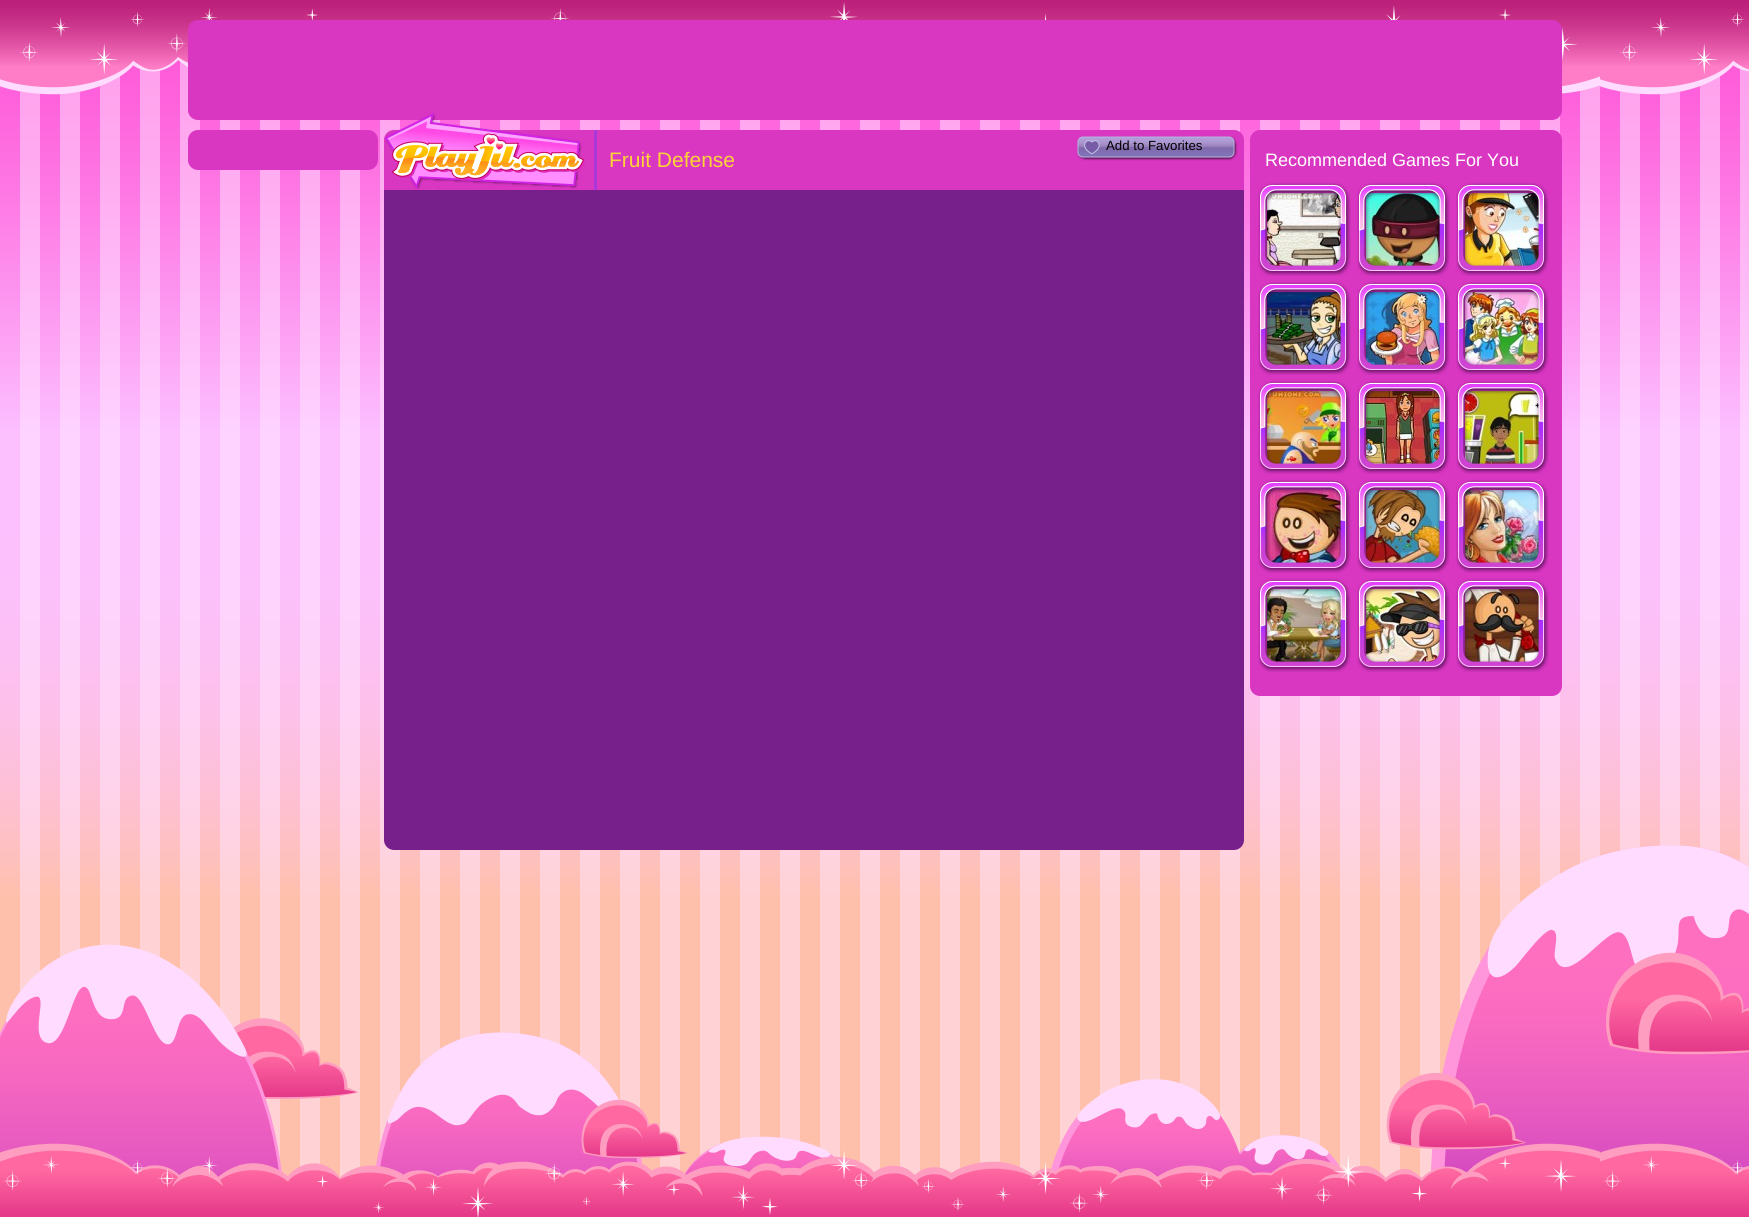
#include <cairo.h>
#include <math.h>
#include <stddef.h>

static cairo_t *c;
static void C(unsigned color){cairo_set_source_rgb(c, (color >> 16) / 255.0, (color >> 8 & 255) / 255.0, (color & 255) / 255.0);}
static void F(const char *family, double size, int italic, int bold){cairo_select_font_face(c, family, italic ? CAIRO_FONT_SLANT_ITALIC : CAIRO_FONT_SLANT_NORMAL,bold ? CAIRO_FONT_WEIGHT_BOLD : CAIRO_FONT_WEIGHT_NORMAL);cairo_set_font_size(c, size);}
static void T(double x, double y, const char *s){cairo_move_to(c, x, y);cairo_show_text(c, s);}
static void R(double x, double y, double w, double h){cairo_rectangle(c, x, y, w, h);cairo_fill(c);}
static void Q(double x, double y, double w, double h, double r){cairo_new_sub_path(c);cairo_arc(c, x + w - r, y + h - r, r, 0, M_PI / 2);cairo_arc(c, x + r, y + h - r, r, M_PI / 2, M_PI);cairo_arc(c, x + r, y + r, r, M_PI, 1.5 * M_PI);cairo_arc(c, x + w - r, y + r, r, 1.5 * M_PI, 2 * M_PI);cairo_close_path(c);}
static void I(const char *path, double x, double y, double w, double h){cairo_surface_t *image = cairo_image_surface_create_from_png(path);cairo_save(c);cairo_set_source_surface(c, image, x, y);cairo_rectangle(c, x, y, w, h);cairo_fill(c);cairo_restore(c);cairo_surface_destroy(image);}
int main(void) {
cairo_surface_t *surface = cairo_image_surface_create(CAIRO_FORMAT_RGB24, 1749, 1217);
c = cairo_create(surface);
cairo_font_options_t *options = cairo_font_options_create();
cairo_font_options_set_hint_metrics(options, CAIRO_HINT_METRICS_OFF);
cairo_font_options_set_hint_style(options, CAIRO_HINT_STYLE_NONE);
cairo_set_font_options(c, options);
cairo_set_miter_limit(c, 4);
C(0xffffff);
cairo_paint(c);
I("1.png",0,60,1749,1118);
I("2.png",0,0,1749,95);
C(0xd936c2);
Q(188,20,1374,100,10);
cairo_fill(c);
Q(188,130,190,40,10);
cairo_fill(c);
cairo_new_path(c);
cairo_move_to(c,394,130);
cairo_line_to(c,1234,130);
cairo_curve_to(c,1239.5,130,1244,134.5,1244,140);
cairo_line_to(c,1244,190);
cairo_line_to(c,384,190);
cairo_line_to(c,384,140);
cairo_curve_to(c,384,134.5,388.5,130,394,130);
cairo_close_path(c);
cairo_fill(c);
I("3.png",384,113,201,77);
I("4.png",1077,136,161,25);
F("Liberation Sans",13.25,0,0);
C(0x000000);
T(1106,150,"Add to Favorites");
C(0xa938d8);
R(594,130,3,60);
F("Liberation Sans",21,0,0);
C(0xffd436);
T(609,167,"Fruit Defense");
I("36.png",1051,845,698,332);
C(0x771f8b);
cairo_new_path(c);
cairo_move_to(c,384,190);
cairo_line_to(c,1244,190);
cairo_line_to(c,1244,840);
cairo_curve_to(c,1244,845.5,1239.5,850,1234,850);
cairo_line_to(c,394,850);
cairo_curve_to(c,388.5,850,384,845.5,384,840);
cairo_close_path(c);
cairo_fill(c);
C(0xd936c2);
Q(1250,130,312,566,10);
cairo_fill(c);
F("Liberation Sans",18,0,0);
C(0xffffff);
T(1265,166,"Recommended Games For You");
I("5.png",1267,193,75,75);
I("6.png",1258,182,93,94);
I("7.png",1366,193,75,75);
I("8.png",1357,182,93,94);
I("9.png",1465,193,75,75);
I("10.png",1456,182,93,94);
I("11.png",1267,292,75,75);
I("12.png",1258,281,93,94);
I("13.png",1366,292,75,75);
I("14.png",1357,281,93,94);
I("15.png",1465,292,75,75);
I("16.png",1456,281,93,94);
I("17.png",1267,391,75,75);
I("18.png",1258,380,93,94);
I("19.png",1366,391,75,75);
I("20.png",1357,380,93,94);
I("21.png",1465,391,75,75);
I("22.png",1456,380,93,94);
I("23.png",1267,490,75,75);
I("24.png",1258,479,93,94);
I("25.png",1366,490,75,75);
I("26.png",1357,479,93,94);
I("27.png",1465,490,75,75);
I("28.png",1456,479,93,94);
I("29.png",1267,589,75,75);
I("30.png",1258,578,93,94);
I("31.png",1366,589,75,75);
I("32.png",1357,578,93,94);
I("33.png",1465,589,75,75);
I("34.png",1456,578,93,94);
I("35.png",0,944,835,233);
I("37.png",0,1143,1749,74);
cairo_surface_write_to_png(surface, "o.png");
cairo_font_options_destroy(options);
cairo_destroy(c);
cairo_surface_destroy(surface);
return 0;
}
